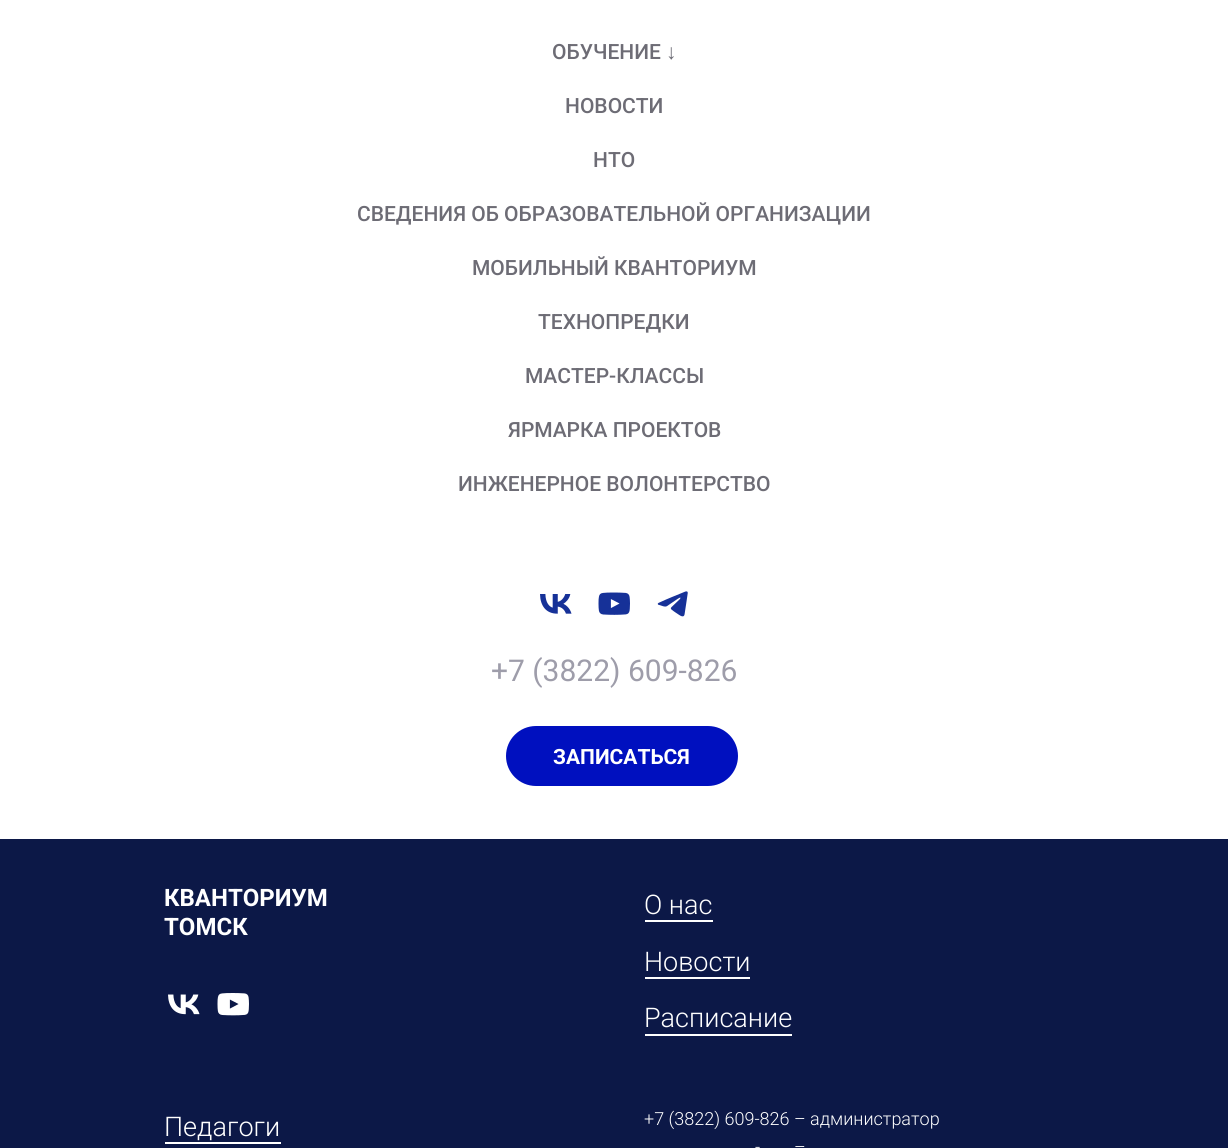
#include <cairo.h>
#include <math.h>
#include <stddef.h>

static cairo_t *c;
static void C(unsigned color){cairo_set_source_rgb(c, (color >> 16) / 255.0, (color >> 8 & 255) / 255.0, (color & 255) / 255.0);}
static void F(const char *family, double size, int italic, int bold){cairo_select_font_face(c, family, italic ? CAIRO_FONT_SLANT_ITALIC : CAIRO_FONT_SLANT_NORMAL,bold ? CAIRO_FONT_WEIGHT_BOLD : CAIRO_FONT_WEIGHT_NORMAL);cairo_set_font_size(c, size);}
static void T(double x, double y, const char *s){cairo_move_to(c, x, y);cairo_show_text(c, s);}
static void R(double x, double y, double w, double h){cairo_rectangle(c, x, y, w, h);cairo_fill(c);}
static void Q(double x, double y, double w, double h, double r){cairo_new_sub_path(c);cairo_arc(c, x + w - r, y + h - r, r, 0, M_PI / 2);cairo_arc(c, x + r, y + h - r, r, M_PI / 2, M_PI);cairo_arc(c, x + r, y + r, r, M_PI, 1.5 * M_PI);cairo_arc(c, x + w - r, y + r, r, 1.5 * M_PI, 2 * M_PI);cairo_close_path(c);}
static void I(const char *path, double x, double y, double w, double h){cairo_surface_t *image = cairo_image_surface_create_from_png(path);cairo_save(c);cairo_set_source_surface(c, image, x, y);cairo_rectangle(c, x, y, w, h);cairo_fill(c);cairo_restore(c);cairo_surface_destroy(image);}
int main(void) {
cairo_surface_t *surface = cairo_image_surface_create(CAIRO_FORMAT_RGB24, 1228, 1148);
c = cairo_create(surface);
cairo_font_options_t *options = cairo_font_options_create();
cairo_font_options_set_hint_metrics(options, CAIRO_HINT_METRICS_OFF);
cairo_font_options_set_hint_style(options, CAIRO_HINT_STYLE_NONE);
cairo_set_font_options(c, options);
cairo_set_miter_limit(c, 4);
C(0xffffff);
cairo_paint(c);
F("Roboto Medium",21,0,0);
C(0x6d6c75);
T(552,59,"ОБУЧЕНИЕ");
F("Liberation Sans",21,0,0);
T(666,59,"↓");
F("Roboto Medium",21,0,0);
T(565,113,"НОВОСТИ");
T(593,167,"НТО");
T(357,221,"СВЕДЕНИЯ ОБ ОБРАЗОВАТЕЛЬНОЙ ОРГАНИЗАЦИИ");
T(472,275,"МОБИЛЬНЫЙ КВАНТОРИУМ");
T(538,329,"ТЕХНОПРЕДКИ");
T(525,383,"МАСТЕР-КЛАССЫ");
T(508,437,"ЯРМАРКА ПРОЕКТОВ");
T(458,491,"ИНЖЕНЕРНОЕ ВОЛОНТЕРСТВО");
I("1.png",540,594,32,20);
I("2.png",598,592,32,23);
I("3.png",657,591,31,26);
F("Roboto",30,0,0);
C(0x9e9daa);
T(491,681,"+7 (3822) 609-826");
C(0x0010bf);
Q(506,726,232,60,30);
cairo_fill(c);
F("Roboto",21,0,1);
C(0xffffff);
T(553,764,"ЗАПИСАТЬСЯ");
C(0x0c1847);
R(0,839,1228,309);
F("Roboto",24,0,1);
C(0xffffff);
T(164,906,"КВАНТОРИУМ");
T(164,935,"ТОМСК");
I("4.png",168,994,32,21);
I("5.png",217,993,32,23);
F("Roboto Light",27,0,0);
T(644,914,"О нас");
R(645,920,68,2);
T(644,971,"Новости");
R(645,977,105,2);
T(644,1027,"Расписание");
R(645,1034,147,2);
T(164,1136,"Педагоги");
R(165,1142,116,2);
F("Roboto Light",18,0,0);
T(644,1125,"+7 (3822) 609-826 – администратор");
T(755,1153,"-");
T(794,1153,"–");
cairo_surface_write_to_png(surface, "o.png");
cairo_font_options_destroy(options);
cairo_destroy(c);
cairo_surface_destroy(surface);
return 0;
}
